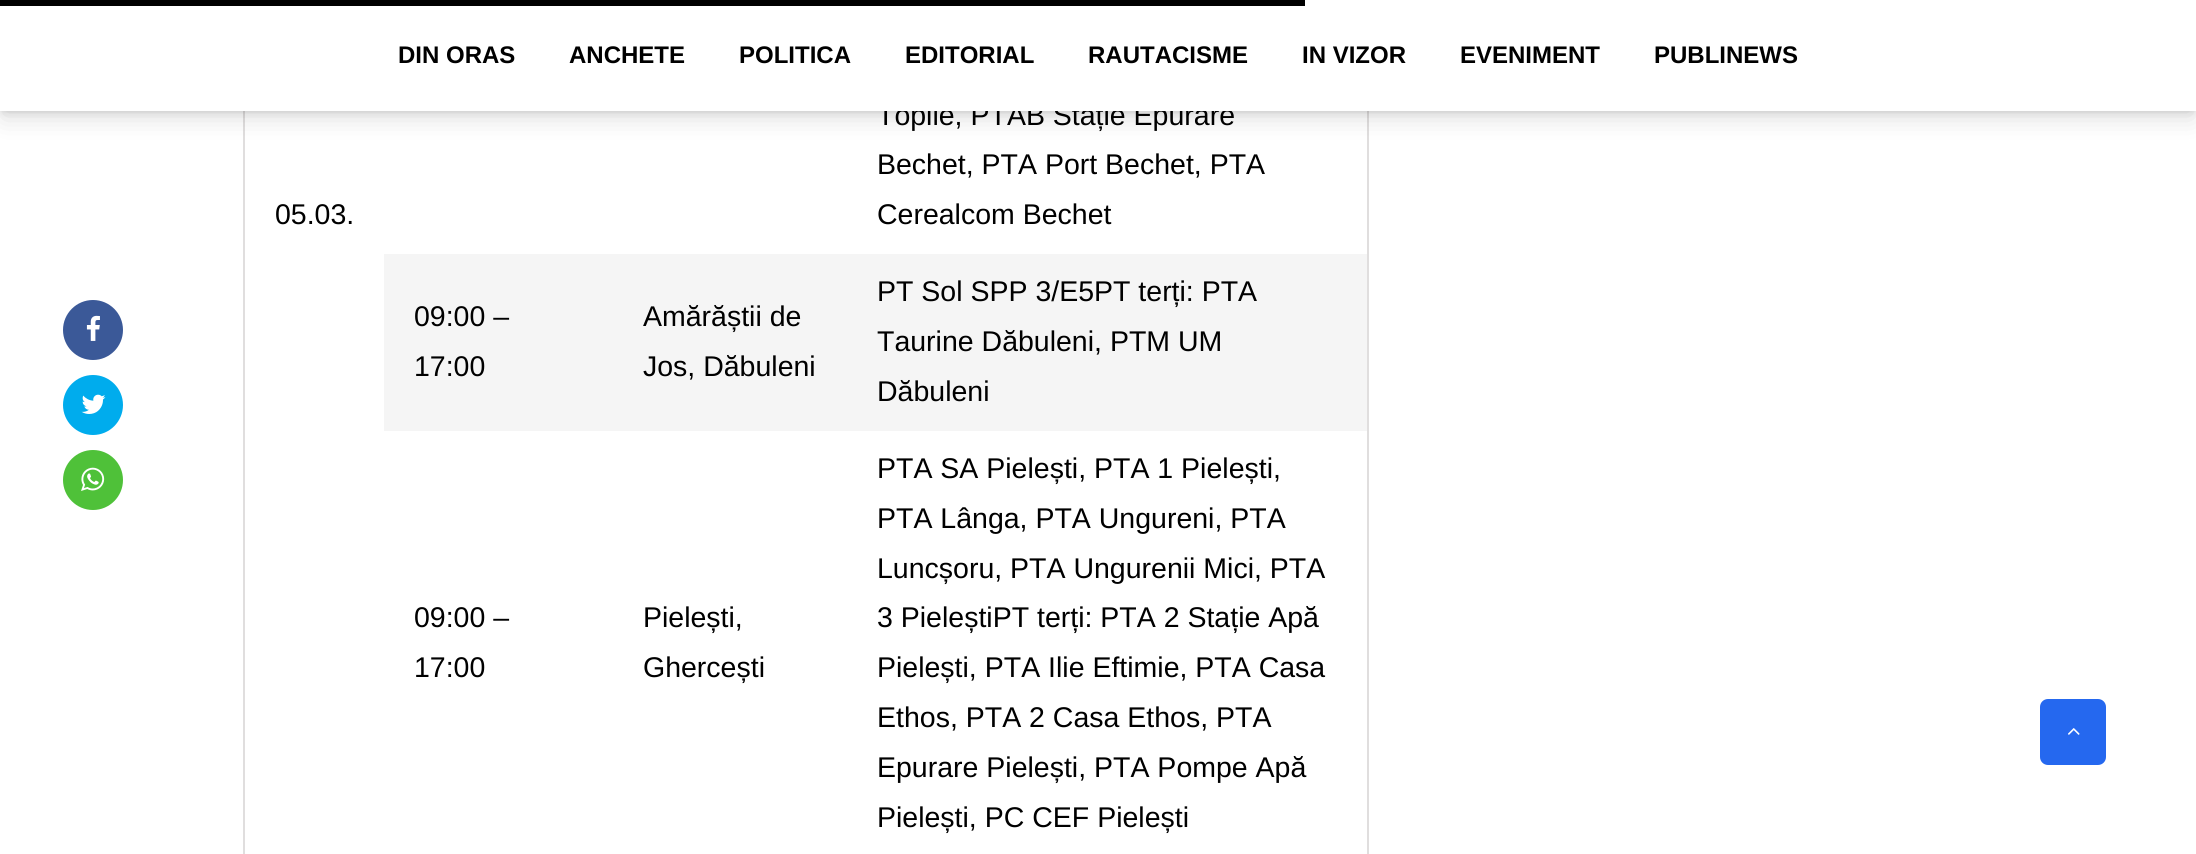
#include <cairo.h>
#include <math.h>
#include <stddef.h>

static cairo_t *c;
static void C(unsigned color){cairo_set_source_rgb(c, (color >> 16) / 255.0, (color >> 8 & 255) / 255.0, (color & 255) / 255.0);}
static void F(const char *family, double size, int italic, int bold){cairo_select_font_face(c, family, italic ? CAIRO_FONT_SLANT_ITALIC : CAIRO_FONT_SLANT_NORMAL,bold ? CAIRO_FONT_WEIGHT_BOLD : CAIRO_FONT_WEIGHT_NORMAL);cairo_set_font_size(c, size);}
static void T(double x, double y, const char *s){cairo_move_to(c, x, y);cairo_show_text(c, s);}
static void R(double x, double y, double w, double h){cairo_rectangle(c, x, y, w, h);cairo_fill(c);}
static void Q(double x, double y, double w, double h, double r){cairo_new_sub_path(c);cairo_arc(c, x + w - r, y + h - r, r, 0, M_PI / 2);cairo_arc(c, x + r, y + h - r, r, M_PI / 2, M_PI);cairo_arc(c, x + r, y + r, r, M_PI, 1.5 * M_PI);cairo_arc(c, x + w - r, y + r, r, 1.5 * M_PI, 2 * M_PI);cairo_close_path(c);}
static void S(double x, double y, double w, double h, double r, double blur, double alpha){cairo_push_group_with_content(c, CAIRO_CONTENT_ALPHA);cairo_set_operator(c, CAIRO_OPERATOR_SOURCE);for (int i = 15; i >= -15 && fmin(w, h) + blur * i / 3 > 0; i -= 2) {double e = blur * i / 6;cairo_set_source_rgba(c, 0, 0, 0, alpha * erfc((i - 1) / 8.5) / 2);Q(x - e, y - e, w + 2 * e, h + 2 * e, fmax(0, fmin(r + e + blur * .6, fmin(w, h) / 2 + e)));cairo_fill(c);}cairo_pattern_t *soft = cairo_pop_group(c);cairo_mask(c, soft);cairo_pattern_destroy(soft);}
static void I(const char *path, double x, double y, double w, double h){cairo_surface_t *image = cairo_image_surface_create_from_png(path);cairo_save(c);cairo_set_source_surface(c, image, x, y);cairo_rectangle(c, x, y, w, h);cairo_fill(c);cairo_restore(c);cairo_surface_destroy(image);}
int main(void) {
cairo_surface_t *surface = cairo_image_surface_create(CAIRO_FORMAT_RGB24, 2196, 854);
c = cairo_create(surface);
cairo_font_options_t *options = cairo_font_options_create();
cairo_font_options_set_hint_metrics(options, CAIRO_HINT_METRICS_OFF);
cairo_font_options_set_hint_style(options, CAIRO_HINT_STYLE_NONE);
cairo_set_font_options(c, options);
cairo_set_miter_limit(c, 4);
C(0xffffff);
cairo_paint(c);
C(0xe0dede);
R(1367,111,2,743);
R(243,111,2,743);
C(0x000000);
S(3,11,2190,105,0,13,.15);
S(3,6,2190,105,0,4,.15);
F("Liberation Sans",28.5,0,0);
C(0x000000);
T(877,125,"Topile, PTAB Stație Epurare");
C(0xffffff);
R(0,0,2196,111);
C(0x000000);
R(0,0,1305,6);
F("Liberation Sans",24,0,1);
T(398,63,"DIN ORAS");
T(569,63,"ANCHETE");
T(739,63,"POLITICA");
T(905,63,"EDITORIAL");
T(1088,63,"RAUTACISME");
T(1302,63,"IN VIZOR");
T(1460,63,"EVENIMENT");
T(1654,63,"PUBLINEWS");
C(0x3b5998);
cairo_new_path(c);
cairo_arc(c,93,330,30,0,2 * M_PI);
cairo_fill(c);
I("1.png",86,315,14,26);
C(0x00aced);
cairo_arc(c,93,405,30,0,2 * M_PI);
cairo_fill(c);
I("2.png",81,394,25,20);
C(0x4fc139);
cairo_arc(c,93,480,30,0,2 * M_PI);
cairo_fill(c);
I("3.png",81,467,24,24);
F("Liberation Sans",28.5,0,0);
C(0x000000);
T(275,224,"05.03.");
T(877,174,"Bechet, PTA Port Bechet, PTA");
T(877,224,"Cerealcom Bechet");
C(0xf5f5f5);
R(384,254,983,177);
C(0x000000);
T(414,326,"09:00 –");
T(414,376,"17:00");
T(643,326,"Amărăștii de");
T(643,376,"Jos, Dăbuleni");
T(877,301,"PT Sol SPP 3/E5PT terți: PTA");
T(877,351,"Taurine Dăbuleni, PTM UM");
T(877,401,"Dăbuleni");
T(414,627,"09:00 –");
T(414,677,"17:00");
T(643,627,"Pielești,");
T(643,677,"Ghercești");
T(877,478,"PTA SA Pielești, PTA 1 Pielești,");
T(877,528,"PTA Lânga, PTA Ungureni, PTA");
T(877,578,"Luncșoru, PTA Ungurenii Mici, PTA");
T(877,627,"3 PieleștiPT terți: PTA 2 Stație Apă");
T(877,677,"Pielești, PTA Ilie Eftimie, PTA Casa");
T(877,727,"Ethos, PTA 2 Casa Ethos, PTA");
T(877,777,"Epurare Pielești, PTA Pompe Apă");
T(877,827,"Pielești, PC CEF Pielești");
C(0x2568ef);
Q(2041,700,64,64,7);
cairo_fill_preserve(c);
cairo_stroke(c);
I("4.png",2068,728,12,7);
cairo_surface_write_to_png(surface, "o.png");
cairo_font_options_destroy(options);
cairo_destroy(c);
cairo_surface_destroy(surface);
return 0;
}
